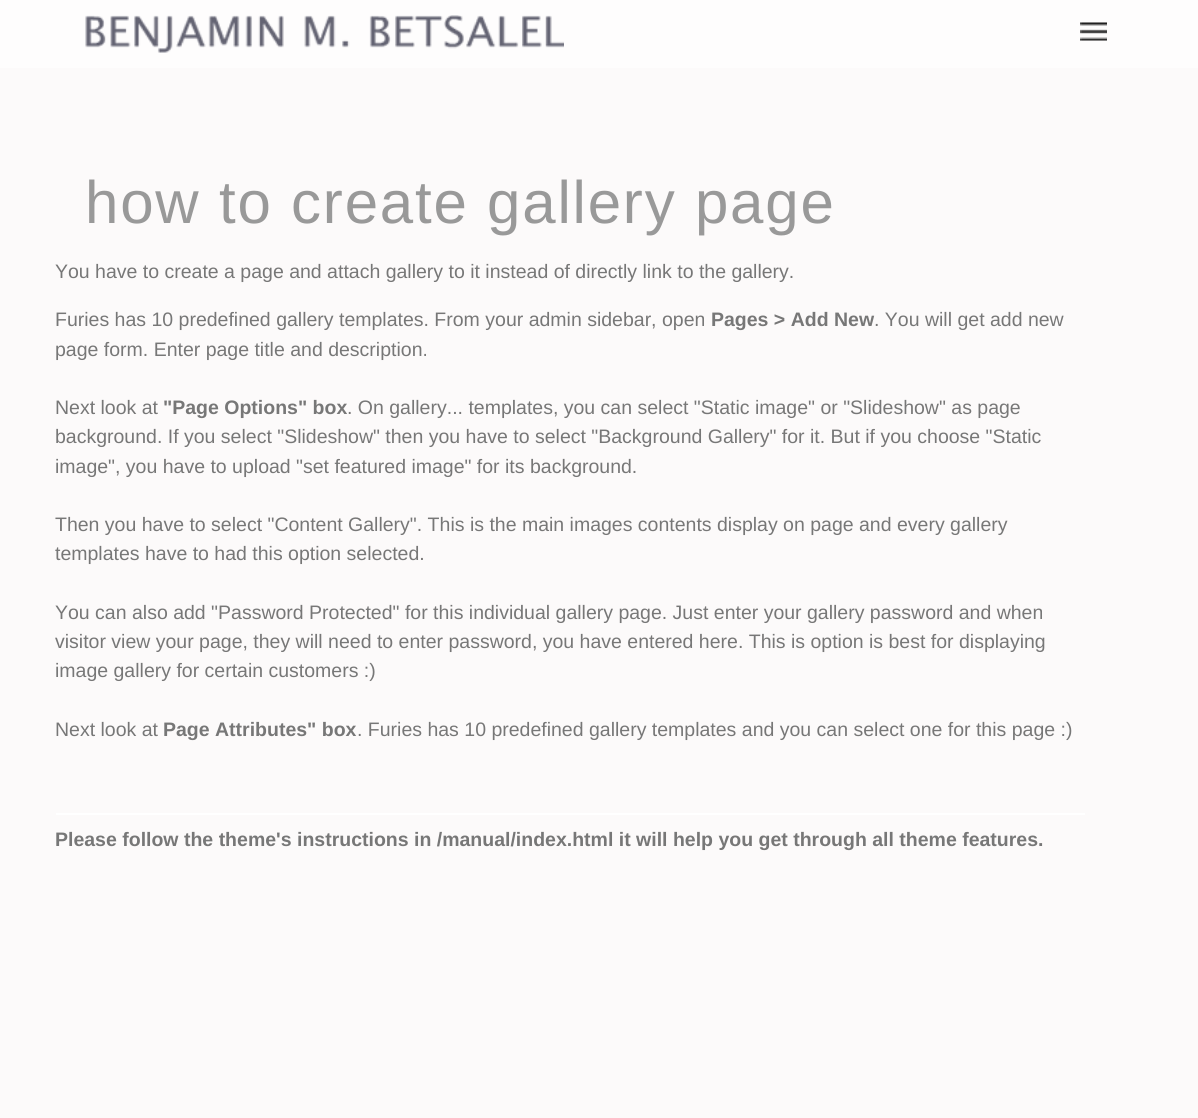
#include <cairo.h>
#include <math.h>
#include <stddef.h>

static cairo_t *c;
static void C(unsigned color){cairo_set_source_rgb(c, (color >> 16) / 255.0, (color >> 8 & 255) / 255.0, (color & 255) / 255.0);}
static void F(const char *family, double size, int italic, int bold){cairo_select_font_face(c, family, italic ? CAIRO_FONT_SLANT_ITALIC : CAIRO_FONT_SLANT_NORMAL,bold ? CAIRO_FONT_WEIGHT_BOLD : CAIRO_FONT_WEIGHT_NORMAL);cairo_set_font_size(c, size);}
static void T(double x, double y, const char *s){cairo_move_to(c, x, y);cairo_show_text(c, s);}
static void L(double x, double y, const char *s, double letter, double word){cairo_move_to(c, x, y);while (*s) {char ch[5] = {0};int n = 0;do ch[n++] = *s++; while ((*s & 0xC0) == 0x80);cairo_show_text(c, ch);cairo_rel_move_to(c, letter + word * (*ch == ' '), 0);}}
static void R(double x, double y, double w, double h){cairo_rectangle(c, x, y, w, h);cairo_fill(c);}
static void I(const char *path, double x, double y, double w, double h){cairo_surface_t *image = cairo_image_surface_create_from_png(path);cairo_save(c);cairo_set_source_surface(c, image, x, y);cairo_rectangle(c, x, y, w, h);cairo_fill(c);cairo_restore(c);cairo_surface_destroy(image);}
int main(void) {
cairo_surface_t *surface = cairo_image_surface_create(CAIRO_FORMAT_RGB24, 1198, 1118);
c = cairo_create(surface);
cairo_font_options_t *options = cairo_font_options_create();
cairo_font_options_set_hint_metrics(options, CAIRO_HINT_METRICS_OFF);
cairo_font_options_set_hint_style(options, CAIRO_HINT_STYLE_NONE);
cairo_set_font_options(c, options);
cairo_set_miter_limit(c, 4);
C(0xfcfafa);
cairo_paint(c);
C(0xfefdfd);
R(0,0,1198,68);
I("1.png",85,15,479,38);
I("2.png",1080,22,27,19);
F("Liberation Sans",60,0,0);
C(0x999999);
L(85,223,"how to create gallery page",1.8,0);
F("Liberation Sans",19.5,0,0);
C(0x777777);
T(55,278,"You have to create a page and attach gallery to it instead of directly link to the gallery.");
T(55,326,"Furies has 10 predefined gallery templates. From your admin sidebar, open");
F("Liberation Sans",19.5,0,1);
T(711,326,"Pages > Add New");
F("Liberation Sans",19.5,0,0);
T(874,326,". You will get add new");
T(55,356,"page form. Enter page title and description.");
T(55,414,"Next look at");
F("Liberation Sans",19.5,0,1);
T(163,414,"\"Page Options\" box");
F("Liberation Sans",19.5,0,0);
T(347,414,". On gallery... templates, you can select \"Static image\" or \"Slideshow\" as page");
T(55,443,"background. If you select \"Slideshow\" then you have to select \"Background Gallery\" for it. But if you choose \"Static");
T(55,473,"image\", you have to upload \"set featured image\" for its background.");
T(55,531,"Then you have to select \"Content Gallery\". This is the main images contents display on page and every gallery");
T(55,560,"templates have to had this option selected.");
T(55,619,"You can also add \"Password Protected\" for this individual gallery page. Just enter your gallery password and when");
T(55,648,"visitor view your page, they will need to enter password, you have entered here. This is option is best for displaying");
T(55,677,"image gallery for certain customers :)");
T(55,736,"Next look at");
F("Liberation Sans",19.5,0,1);
T(163,736,"Page Attributes\" box");
F("Liberation Sans",19.5,0,0);
T(357,736,". Furies has 10 predefined gallery templates and you can select one for this page :)");
C(0xffffff);
R(56,813,1029,2);
F("Liberation Sans",19.5,0,1);
C(0x777777);
T(55,846,"Please follow the theme's instructions in /manual/index.html it will help you get through all theme features.");
cairo_surface_write_to_png(surface, "o.png");
cairo_font_options_destroy(options);
cairo_destroy(c);
cairo_surface_destroy(surface);
return 0;
}
